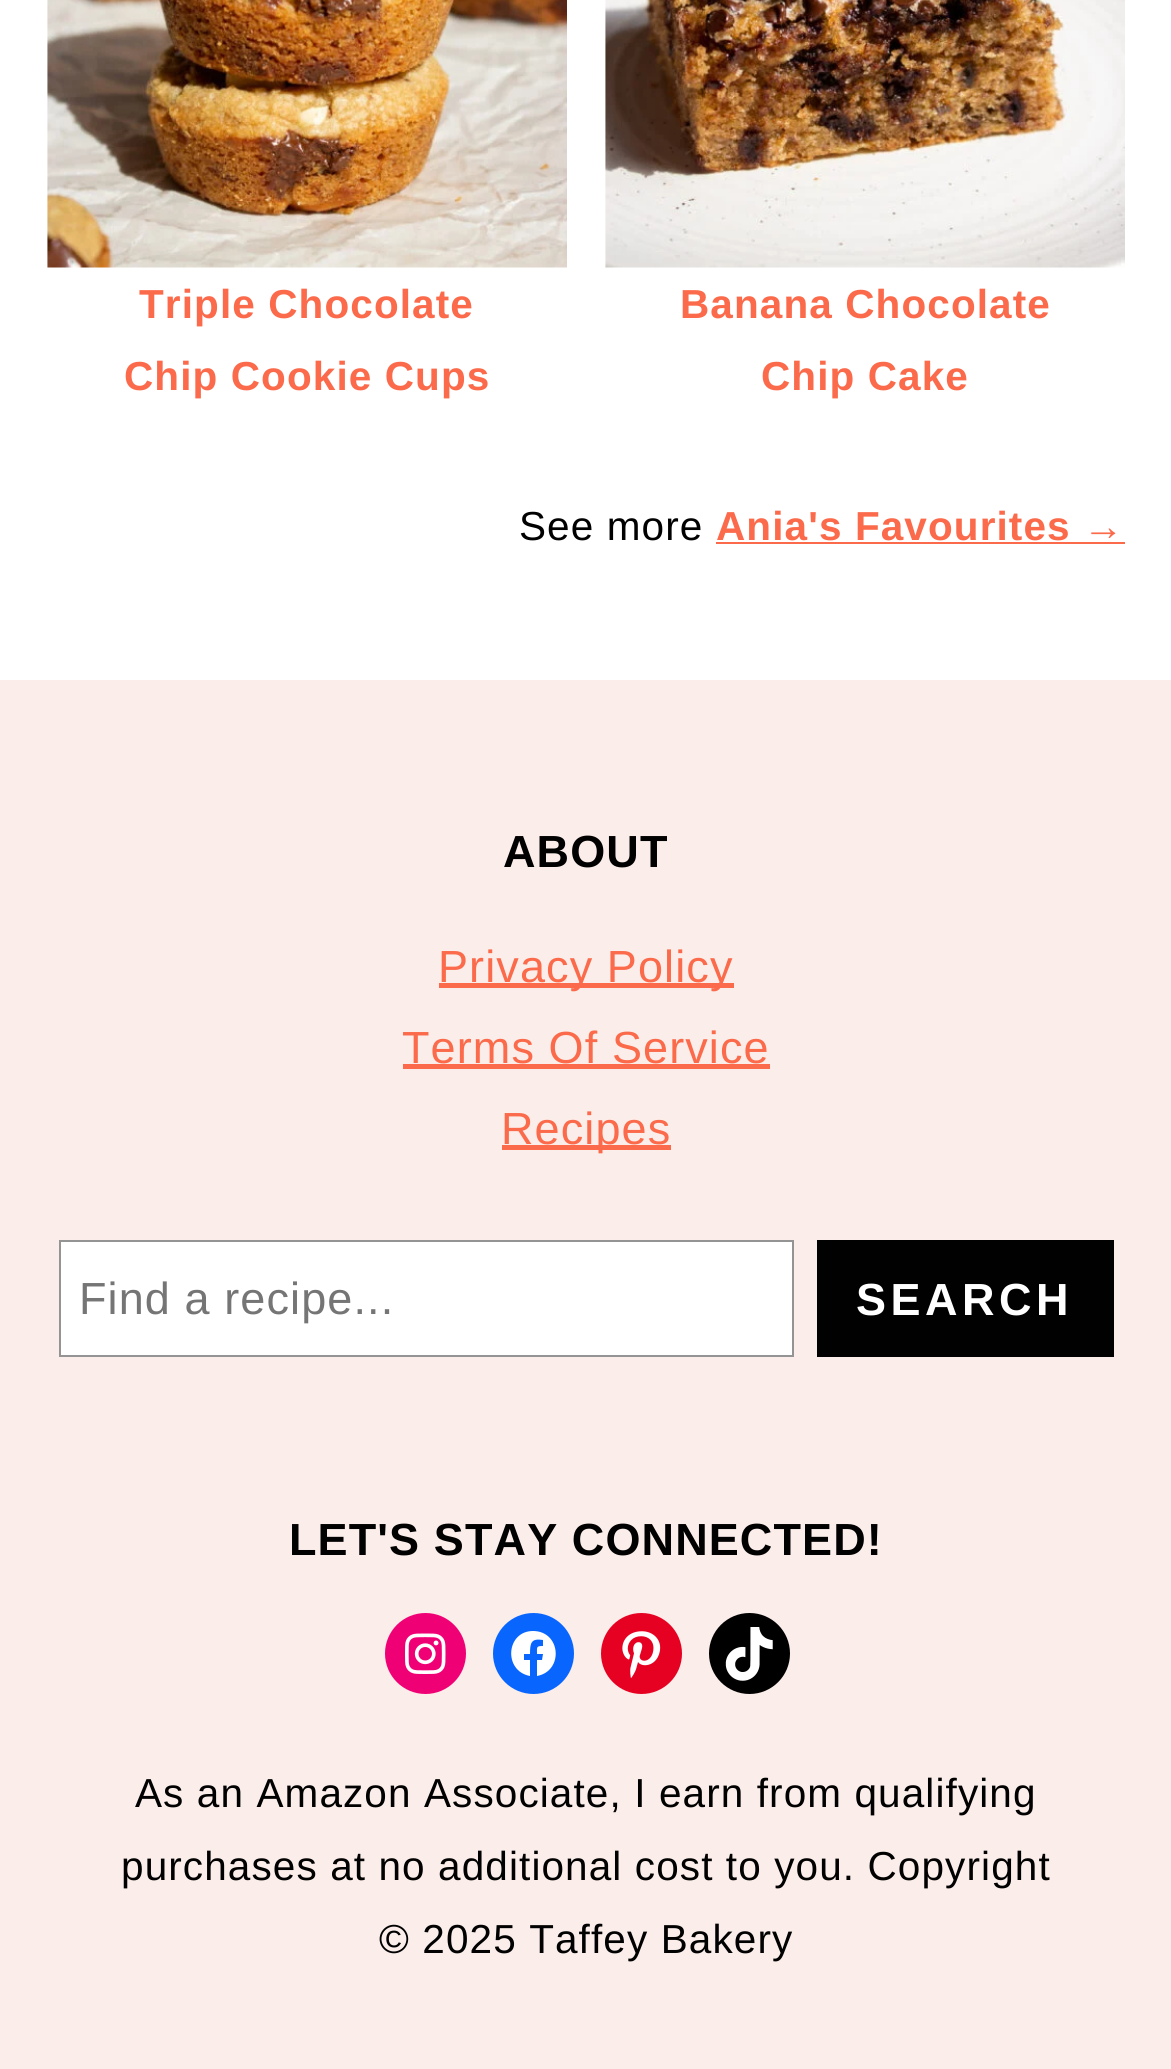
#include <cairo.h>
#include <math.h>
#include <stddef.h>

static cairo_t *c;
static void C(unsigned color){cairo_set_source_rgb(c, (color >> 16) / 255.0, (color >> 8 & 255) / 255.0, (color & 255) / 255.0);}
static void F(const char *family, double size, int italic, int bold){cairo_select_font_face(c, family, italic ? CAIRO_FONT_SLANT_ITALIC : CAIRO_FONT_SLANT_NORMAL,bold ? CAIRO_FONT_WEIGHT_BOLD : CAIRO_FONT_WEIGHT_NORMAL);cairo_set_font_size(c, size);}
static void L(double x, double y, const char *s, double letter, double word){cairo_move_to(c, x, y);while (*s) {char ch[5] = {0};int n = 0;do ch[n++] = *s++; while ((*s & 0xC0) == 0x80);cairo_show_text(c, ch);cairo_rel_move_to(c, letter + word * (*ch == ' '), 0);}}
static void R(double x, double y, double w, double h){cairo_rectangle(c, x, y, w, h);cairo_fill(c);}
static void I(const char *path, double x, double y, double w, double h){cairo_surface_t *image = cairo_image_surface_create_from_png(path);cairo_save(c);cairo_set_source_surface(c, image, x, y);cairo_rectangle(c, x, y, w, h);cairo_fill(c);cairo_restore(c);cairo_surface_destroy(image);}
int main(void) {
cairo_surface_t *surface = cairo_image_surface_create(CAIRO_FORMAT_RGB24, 1171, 2069);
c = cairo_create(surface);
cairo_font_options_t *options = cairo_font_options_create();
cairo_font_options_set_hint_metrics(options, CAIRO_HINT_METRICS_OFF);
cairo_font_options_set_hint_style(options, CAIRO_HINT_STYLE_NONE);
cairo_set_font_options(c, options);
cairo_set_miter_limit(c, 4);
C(0xffffff);
cairo_paint(c);
I("1.png",47,0,520,268);
F("Liberation Sans",40.5,0,1);
C(0xfb6a4a);
L(139,318,"Triple Chocolate",1.1,0);
L(124,390,"Chip Cookie Cups",1.1,0);
I("2.png",605,0,520,268);
L(680,318,"Banana Chocolate",1.1,0);
L(761,390,"Chip Cake",1.1,0);
F("Liberation Sans",40.5,0,0);
C(0x010101);
L(519,540,"See more",1.1,0);
F("Liberation Sans",40.5,0,1);
C(0xfb6a4a);
L(716,540,"Ania's Favourites →",1.1,0);
R(716,542,409,2);
C(0xfbeeea);
R(0,680,1171,1389);
F("Liberation Sans",45,0,1);
C(0x010101);
L(503,867,"ABOUT",1.1,0);
C(0xfb6a4a);
R(439,983,295,5);
F("Liberation Sans",45,0,0);
L(438,982,"Privacy Policy",1.1,0);
L(402,1063,"Terms Of Service",1.1,0);
R(403,1064,367,5);
R(502,1145,169,5);
L(501,1144,"Recipes",1.1,0);
C(0xffffff);
cairo_rectangle(c,60,1241,733,115);
cairo_fill_preserve(c);
C(0x949494);
cairo_stroke(c);
C(0x757575);
L(79,1314,"Find a recipe...",1.1,0);
C(0x010101);
R(817,1240,297,117);
F("Liberation Sans",45,0,1);
C(0xffffff);
L(856,1315,"SEARCH",4.5,0);
C(0x010101);
L(289,1555,"LET'S STAY CONNECTED!",1.1,0);
C(0xf00075);
cairo_new_path(c);
cairo_arc(c,425.5,1653.5,40.5,0,2 * M_PI);
cairo_fill(c);
I("3.png",405,1633,41,41);
C(0x0866ff);
cairo_arc(c,533.5,1653.5,40.5,0,2 * M_PI);
cairo_fill(c);
C(0xffffff);
cairo_new_path(c);
cairo_move_to(c,533,1631);
cairo_curve_to(c,506,1631,503,1671,530,1676);
cairo_line_to(c,530,1660);
cairo_line_to(c,524,1660);
cairo_line_to(c,524,1654);
cairo_line_to(c,530,1654);
cairo_curve_to(c,530,1643,531,1638,543,1640);
cairo_line_to(c,543,1646);
cairo_curve_to(c,536,1646,537,1647,537,1654);
cairo_line_to(c,543,1654);
cairo_line_to(c,542,1660);
cairo_line_to(c,537,1660);
cairo_line_to(c,537,1676);
cairo_curve_to(c,564,1671,561,1631,533,1631);
cairo_close_path(c);
cairo_fill(c);
C(0xe60122);
cairo_arc(c,641.5,1653.5,40.5,0,2 * M_PI);
cairo_fill(c);
I("4.png",622,1631,39,47);
C(0x000000);
cairo_arc(c,749.5,1653.5,40.5,0,2 * M_PI);
cairo_fill(c);
I("5.png",725,1627,48,54);
F("Liberation Sans",40.5,0,0);
C(0x010101);
L(135,1807,"As an Amazon Associate, I earn from qualifying",1.1,0);
L(121,1880,"purchases at no additional cost to you. Copyright",1.1,0);
L(379,1953,"© 2025 Taffey Bakery",1.1,0);
cairo_surface_write_to_png(surface, "o.png");
cairo_font_options_destroy(options);
cairo_destroy(c);
cairo_surface_destroy(surface);
return 0;
}
